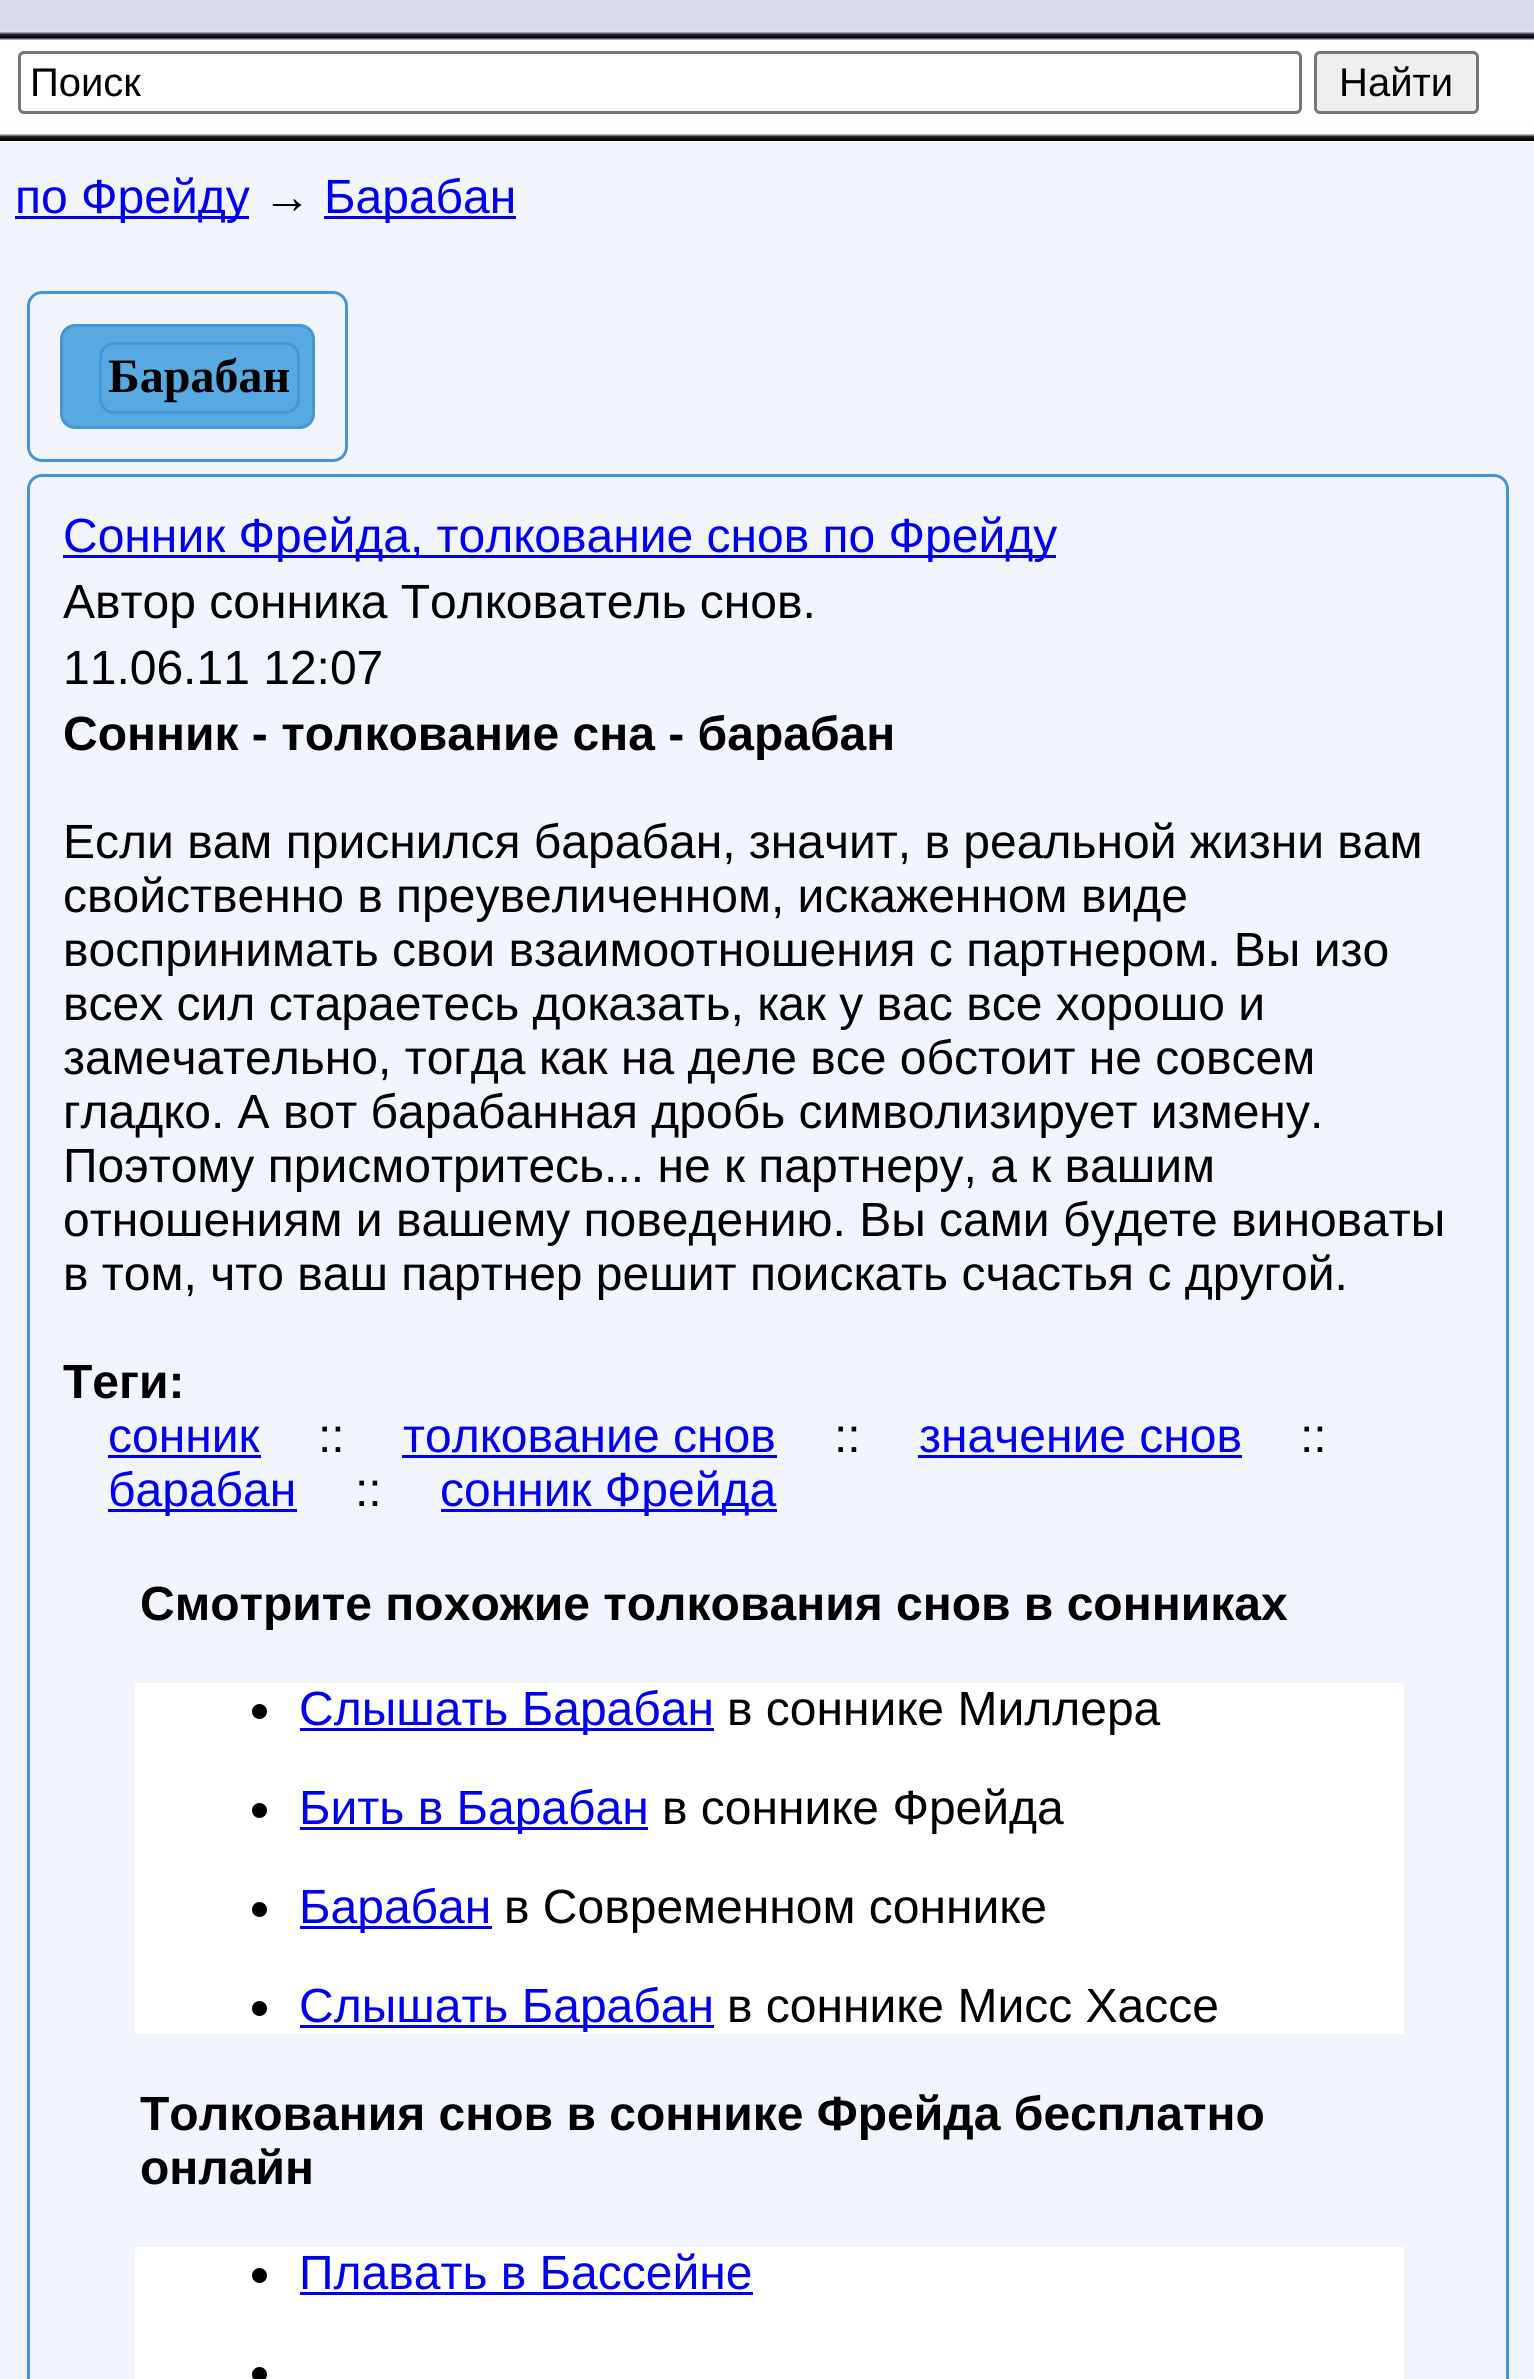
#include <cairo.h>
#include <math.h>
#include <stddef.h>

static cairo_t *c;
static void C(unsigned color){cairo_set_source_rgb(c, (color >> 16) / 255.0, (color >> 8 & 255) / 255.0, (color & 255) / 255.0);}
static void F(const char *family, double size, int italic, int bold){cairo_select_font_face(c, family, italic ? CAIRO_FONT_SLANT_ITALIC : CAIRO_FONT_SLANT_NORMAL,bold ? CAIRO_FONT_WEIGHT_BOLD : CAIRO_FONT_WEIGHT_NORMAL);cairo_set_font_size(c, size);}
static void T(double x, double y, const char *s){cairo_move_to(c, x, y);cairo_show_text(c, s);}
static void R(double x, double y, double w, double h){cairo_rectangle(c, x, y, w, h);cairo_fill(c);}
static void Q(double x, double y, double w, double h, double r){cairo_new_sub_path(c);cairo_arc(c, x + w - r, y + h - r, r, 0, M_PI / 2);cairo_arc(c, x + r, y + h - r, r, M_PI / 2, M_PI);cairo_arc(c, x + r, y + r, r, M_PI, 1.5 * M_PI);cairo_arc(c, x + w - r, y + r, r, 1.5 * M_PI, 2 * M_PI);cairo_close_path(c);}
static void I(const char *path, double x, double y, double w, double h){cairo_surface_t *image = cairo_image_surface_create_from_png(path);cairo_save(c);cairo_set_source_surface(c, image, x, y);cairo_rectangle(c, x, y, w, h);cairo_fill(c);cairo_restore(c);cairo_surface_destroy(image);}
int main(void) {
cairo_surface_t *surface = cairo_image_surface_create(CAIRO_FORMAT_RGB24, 1534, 2379);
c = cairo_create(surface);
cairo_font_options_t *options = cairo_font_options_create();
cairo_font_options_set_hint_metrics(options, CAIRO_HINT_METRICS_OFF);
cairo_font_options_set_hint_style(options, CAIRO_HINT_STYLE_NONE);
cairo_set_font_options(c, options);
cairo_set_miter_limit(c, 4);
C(0xf2f4fb);
cairo_paint(c);
I("1.png",0,0,1534,141);
Q(19.5,52.5,1281,60,4.5);
C(0x767676);
cairo_set_line_width(c,3);
cairo_stroke(c);
F("Liberation Sans",40,0,0);
C(0x000000);
T(30,96,"Поиск");
C(0xefefef);
Q(1315.5,52.5,162,60,4.5);
cairo_fill_preserve(c);
C(0x767676);
cairo_stroke(c);
C(0x000000);
T(1339,96,"Найти");
C(0x0000ee);
R(15,216,234,3);
F("Liberation Sans",48,0,0);
T(15,213,"по Фрейду");
C(0x000000);
T(263,213,"→");
C(0x0000ee);
R(324,216,192,3);
T(324,213,"Барабан");
Q(28.5,292.5,318,168,13.5);
C(0x4297d7);
cairo_stroke(c);
C(0x58a8e2);
Q(61.5,325.5,252,102,13.5);
cairo_fill_preserve(c);
C(0x4297d7);
cairo_stroke(c);
Q(100.5,343.5,198,69,13.5);
cairo_stroke(c);
F("Liberation Serif",48,0,1);
C(0x000000);
T(108,392,"Барабан");
Q(28.5,475.5,1479,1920,13.5);
C(0x4297d7);
cairo_stroke(c);
C(0x0000ee);
R(63,555,993,3);
F("Liberation Sans",48,0,0);
T(63,552,"Сонник Фрейда, толкование снов по Фрейду");
C(0x000000);
T(63,618,"Автор сонника Толкователь снов.");
T(63,684,"11.06.11 12:07");
F("Liberation Sans",48,0,1);
T(63,750,"Сонник - толкование сна - барабан");
F("Liberation Sans",48,0,0);
T(63,858,"Если вам приснился барабан, значит, в реальной жизни вам");
T(63,912,"свойственно в преувеличенном, искаженном виде");
T(63,966,"воспринимать свои взаимоотношения с партнером. Вы изо");
T(63,1020,"всех сил стараетесь доказать, как у вас все хорошо и");
T(63,1074,"замечательно, тогда как на деле все обстоит не совсем");
T(63,1128,"гладко. А вот барабанная дробь символизирует измену.");
T(63,1182,"Поэтому присмотритесь... не к партнеру, а к вашим");
T(63,1236,"отношениям и вашему поведению. Вы сами будете виноваты");
T(63,1290,"в том, что ваш партнер решит поискать счастья с другой.");
F("Liberation Sans",48,0,1);
T(63,1398,"Теги:");
F("Liberation Sans",48,0,0);
C(0x0000ee);
T(108,1452,"сонник");
R(108,1455,153,3);
C(0x000000);
T(318,1452,"::");
C(0x0000ee);
T(403,1452,"толкование снов");
R(402,1455,375,3);
C(0x000000);
T(834,1452,"::");
C(0x0000ee);
T(919,1452,"значение снов");
R(918,1455,324,3);
C(0x000000);
T(1300,1452,"::");
C(0x0000ee);
R(108,1509,189,3);
T(108,1506,"барабан");
C(0x000000);
T(355,1506,"::");
C(0x0000ee);
R(441,1509,336,3);
T(440,1506,"сонник Фрейда");
F("Liberation Sans",48,0,1);
C(0x000000);
T(140,1620,"Смотрите похожие толкования снов в сонниках");
C(0xffffff);
R(135,1683,1269,351);
C(0x000000);
cairo_new_path(c);
cairo_arc(c,259.5,1711.5,7.5,0,2 * M_PI);
cairo_fill(c);
C(0x0000ee);
R(300,1728,414,3);
F("Liberation Sans",48,0,0);
T(299,1725,"Слышать Барабан");
C(0x000000);
T(727,1725,"в соннике Миллера");
cairo_new_path(c);
cairo_arc(c,259.5,1810.5,7.5,0,2 * M_PI);
cairo_fill(c);
C(0x0000ee);
R(300,1827,348,3);
T(299,1824,"Бить в Барабан");
C(0x000000);
T(662,1824,"в соннике Фрейда");
cairo_new_path(c);
cairo_arc(c,259.5,1909.5,7.5,0,2 * M_PI);
cairo_fill(c);
C(0x0000ee);
R(300,1926,192,3);
T(299,1923,"Барабан");
C(0x000000);
T(504,1923,"в Современном соннике");
cairo_new_path(c);
cairo_arc(c,259.5,2008.5,7.5,0,2 * M_PI);
cairo_fill(c);
C(0x0000ee);
R(300,2025,414,3);
T(299,2022,"Слышать Барабан");
C(0x000000);
T(727,2022,"в соннике Мисс Хассе");
F("Liberation Sans",48,0,1);
T(140,2130,"Толкования снов в соннике Фрейда бесплатно");
T(140,2184,"онлайн");
C(0xffffff);
R(135,2247,1269,132);
C(0x000000);
cairo_new_path(c);
cairo_arc(c,259.5,2275.5,7.5,0,2 * M_PI);
cairo_fill(c);
F("Liberation Sans",48,0,0);
C(0x0000ee);
T(299,2289,"Плавать в Бассейне");
R(300,2292,453,3);
C(0x000000);
cairo_new_path(c);
cairo_arc(c,259.5,2374.5,7.5,0,2 * M_PI);
cairo_fill(c);
cairo_surface_write_to_png(surface, "o.png");
cairo_font_options_destroy(options);
cairo_destroy(c);
cairo_surface_destroy(surface);
return 0;
}
